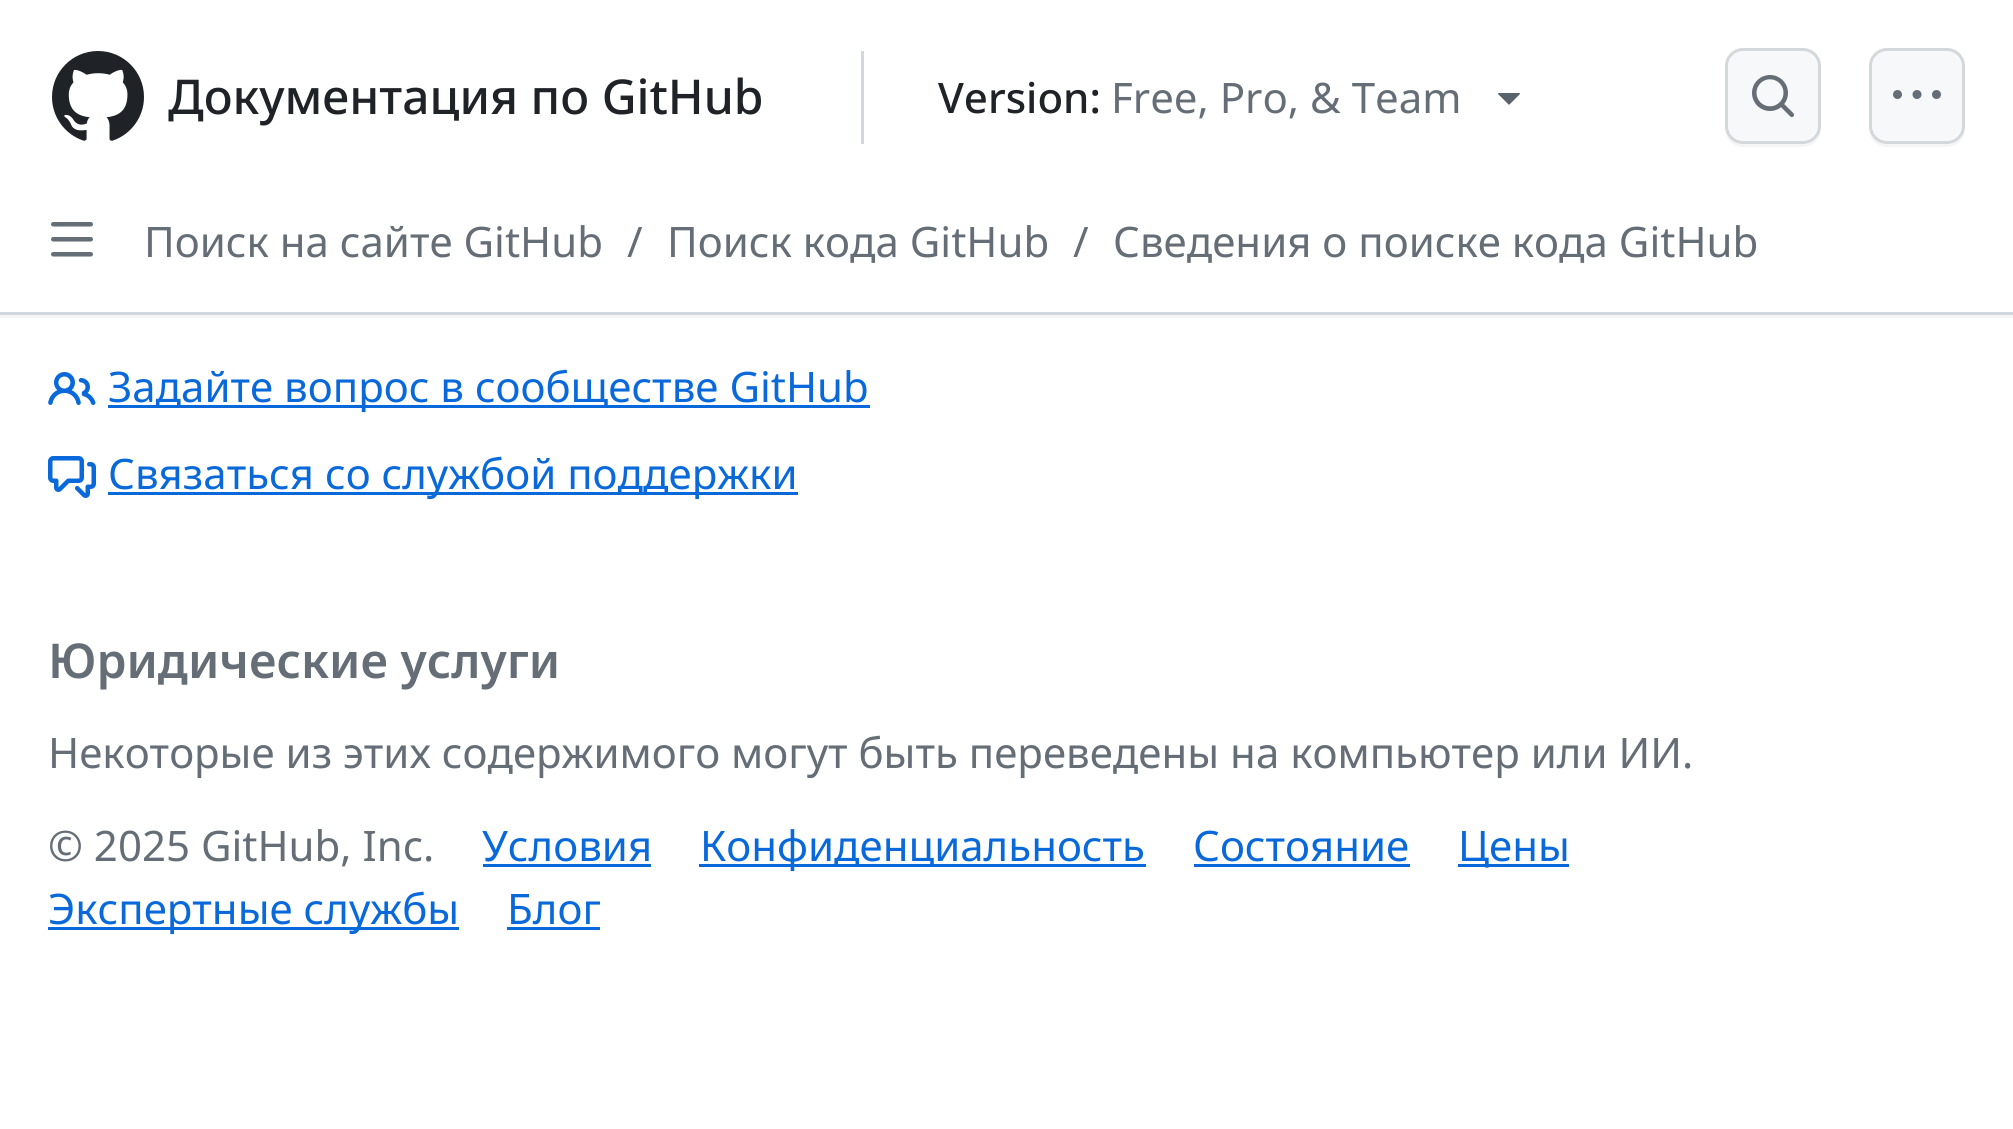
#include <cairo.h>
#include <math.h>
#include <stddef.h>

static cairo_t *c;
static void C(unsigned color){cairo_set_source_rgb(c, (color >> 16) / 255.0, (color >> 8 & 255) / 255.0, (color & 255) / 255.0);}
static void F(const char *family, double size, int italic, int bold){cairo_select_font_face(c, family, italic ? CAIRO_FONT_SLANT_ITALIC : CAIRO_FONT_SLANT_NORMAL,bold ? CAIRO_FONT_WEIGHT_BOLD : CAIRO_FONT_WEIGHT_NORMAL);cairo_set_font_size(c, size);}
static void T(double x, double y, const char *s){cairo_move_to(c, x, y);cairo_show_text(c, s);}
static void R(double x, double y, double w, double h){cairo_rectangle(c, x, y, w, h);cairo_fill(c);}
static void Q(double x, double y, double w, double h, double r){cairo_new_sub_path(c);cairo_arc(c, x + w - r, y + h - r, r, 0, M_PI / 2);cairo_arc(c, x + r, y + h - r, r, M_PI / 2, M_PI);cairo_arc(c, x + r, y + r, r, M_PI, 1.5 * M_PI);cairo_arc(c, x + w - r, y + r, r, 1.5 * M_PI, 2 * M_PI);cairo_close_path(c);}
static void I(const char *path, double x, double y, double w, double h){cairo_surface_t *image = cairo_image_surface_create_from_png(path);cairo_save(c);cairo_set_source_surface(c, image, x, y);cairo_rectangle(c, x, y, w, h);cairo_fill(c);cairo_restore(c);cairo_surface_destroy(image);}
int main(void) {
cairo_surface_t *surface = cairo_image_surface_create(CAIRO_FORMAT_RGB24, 2013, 1129);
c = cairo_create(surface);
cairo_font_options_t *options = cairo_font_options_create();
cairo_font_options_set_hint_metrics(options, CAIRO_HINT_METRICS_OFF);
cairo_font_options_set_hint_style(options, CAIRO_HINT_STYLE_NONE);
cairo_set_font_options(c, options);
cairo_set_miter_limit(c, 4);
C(0xffffff);
cairo_paint(c);
C(0xf6f6f6);
R(0,315,2013,3);
C(0xd0d7de);
R(0,312,2013,3);
I("1.png",52,51,92,90);
F("Noto Sans Medium",48,0,0);
C(0x1f2328);
T(168,114,"Документация по GitHub");
C(0xd0d7de);
R(861,51,3,93);
F("Noto Sans Medium",42,0,0);
C(0x1f2328);
T(938,113,"Version:");
F("Noto Sans",42,0,0);
C(0x656d76);
T(1111,113,"Free, Pro, & Team");
I("2.png",1498,93,22,12);
C(0xf6f6f6);
cairo_new_path(c);
cairo_move_to(c,1725,126);
cairo_line_to(c,1725,129);
cairo_curve_to(c,1725,139,1733,147,1743,147);
cairo_line_to(c,1803,147);
cairo_curve_to(c,1813,147,1821,139,1821,129);
cairo_line_to(c,1821,126);
cairo_curve_to(c,1821,136,1813,144,1803,144);
cairo_line_to(c,1743,144);
cairo_curve_to(c,1733,144,1725,136,1725,126);
cairo_close_path(c);
cairo_fill(c);
C(0xf6f8fa);
Q(1725,48,96,96,18);
cairo_fill(c);
Q(1726.5,49.5,93,93,16.5);
cairo_set_source_rgba(c,0.122,0.137,0.157,0.15);
cairo_set_line_width(c,3);
cairo_stroke(c);
I("3.png",1752,75,42,42);
C(0xf6f6f6);
cairo_new_path(c);
cairo_move_to(c,1869,126);
cairo_line_to(c,1869,129);
cairo_curve_to(c,1869,139,1877,147,1887,147);
cairo_line_to(c,1947,147);
cairo_curve_to(c,1957,147,1965,139,1965,129);
cairo_line_to(c,1965,126);
cairo_curve_to(c,1965,136,1957,144,1947,144);
cairo_line_to(c,1887,144);
cairo_curve_to(c,1877,144,1869,136,1869,126);
cairo_close_path(c);
cairo_fill(c);
C(0xf6f8fa);
Q(1869,48,96,96,18);
cairo_fill(c);
Q(1870.5,49.5,93,93,16.5);
cairo_set_source_rgba(c,0.122,0.137,0.157,0.15);
cairo_stroke(c);
I("4.png",1893,90,48,9);
I("5.png",51,222,42,35);
C(0x656d76);
T(144,257,"Поиск на сайте GitHub");
T(627,257,"/");
T(667,257,"Поиск кода GitHub");
T(1073,257,"/");
T(1113,257,"Сведения о поиске кода GitHub");
I("6.png",48,372,48,33);
C(0x0969da);
R(108,405,762,3);
T(108,402,"Задайте вопрос в сообществе GitHub");
I("7.png",48,456,48,42);
R(108,492,690,3);
T(108,489,"Связаться со службой поддержки");
F("Noto Sans SemiBold",48,0,0);
C(0x656d76);
T(48,678,"Юридические услуги");
F("Noto Sans",42,0,0);
T(48,768,"Некоторые из этих содержимого могут быть переведены на компьютер или ИИ.");
T(48,861,"© 2025 GitHub, Inc.");
C(0x0969da);
T(482,861,"Условия");
R(483,864,168,3);
R(699,864,447,3);
T(700,861,"Конфиденциальность");
T(1193,861,"Состояние");
R(1194,864,216,3);
R(1458,864,111,3);
T(1458,861,"Цены");
R(48,927,411,3);
T(48,924,"Экспертные службы");
T(507,924,"Блог");
R(507,927,93,3);
cairo_surface_write_to_png(surface, "o.png");
cairo_font_options_destroy(options);
cairo_destroy(c);
cairo_surface_destroy(surface);
return 0;
}
